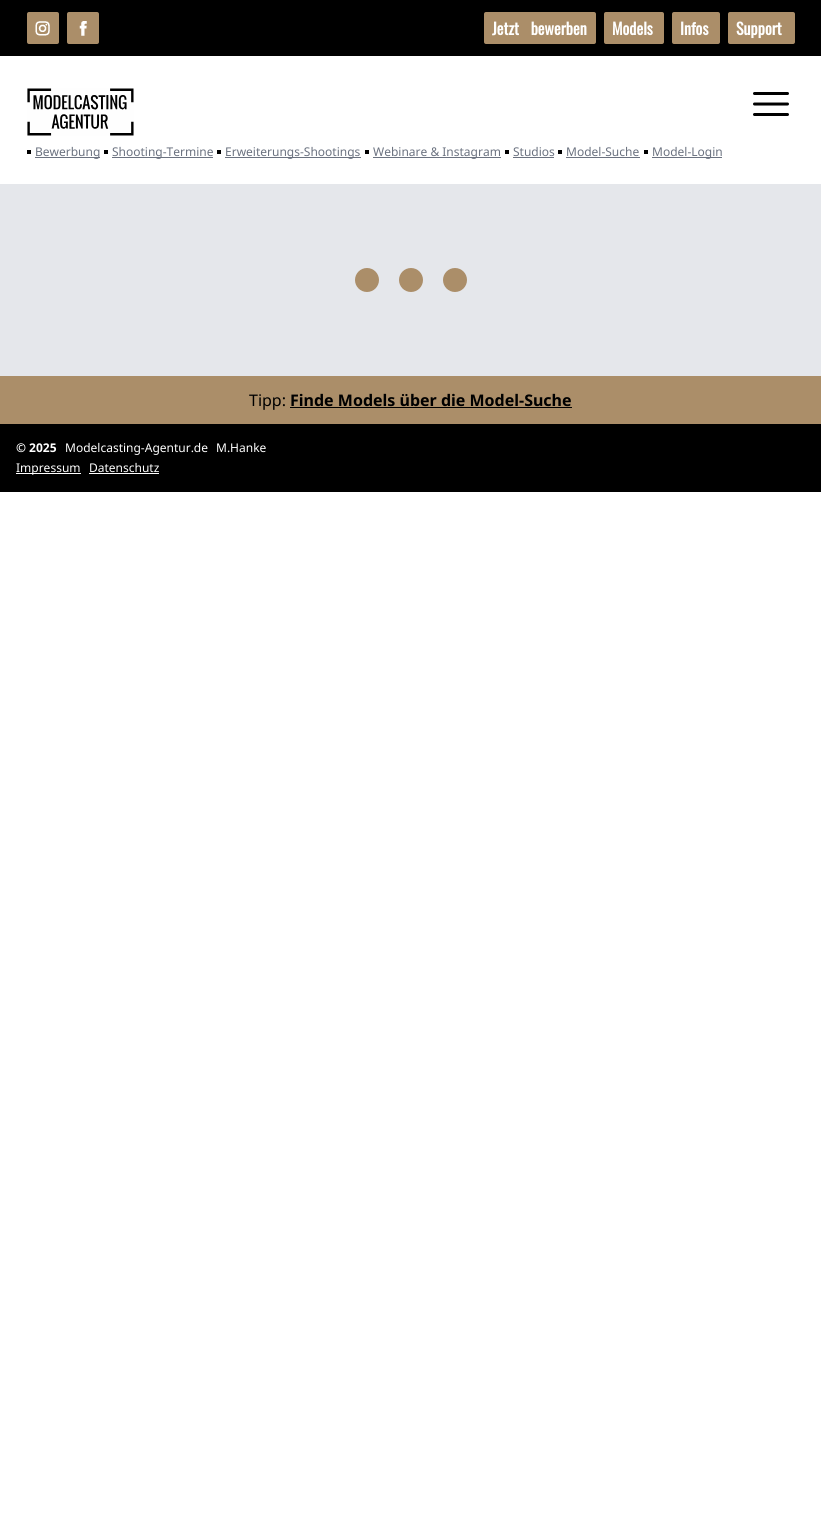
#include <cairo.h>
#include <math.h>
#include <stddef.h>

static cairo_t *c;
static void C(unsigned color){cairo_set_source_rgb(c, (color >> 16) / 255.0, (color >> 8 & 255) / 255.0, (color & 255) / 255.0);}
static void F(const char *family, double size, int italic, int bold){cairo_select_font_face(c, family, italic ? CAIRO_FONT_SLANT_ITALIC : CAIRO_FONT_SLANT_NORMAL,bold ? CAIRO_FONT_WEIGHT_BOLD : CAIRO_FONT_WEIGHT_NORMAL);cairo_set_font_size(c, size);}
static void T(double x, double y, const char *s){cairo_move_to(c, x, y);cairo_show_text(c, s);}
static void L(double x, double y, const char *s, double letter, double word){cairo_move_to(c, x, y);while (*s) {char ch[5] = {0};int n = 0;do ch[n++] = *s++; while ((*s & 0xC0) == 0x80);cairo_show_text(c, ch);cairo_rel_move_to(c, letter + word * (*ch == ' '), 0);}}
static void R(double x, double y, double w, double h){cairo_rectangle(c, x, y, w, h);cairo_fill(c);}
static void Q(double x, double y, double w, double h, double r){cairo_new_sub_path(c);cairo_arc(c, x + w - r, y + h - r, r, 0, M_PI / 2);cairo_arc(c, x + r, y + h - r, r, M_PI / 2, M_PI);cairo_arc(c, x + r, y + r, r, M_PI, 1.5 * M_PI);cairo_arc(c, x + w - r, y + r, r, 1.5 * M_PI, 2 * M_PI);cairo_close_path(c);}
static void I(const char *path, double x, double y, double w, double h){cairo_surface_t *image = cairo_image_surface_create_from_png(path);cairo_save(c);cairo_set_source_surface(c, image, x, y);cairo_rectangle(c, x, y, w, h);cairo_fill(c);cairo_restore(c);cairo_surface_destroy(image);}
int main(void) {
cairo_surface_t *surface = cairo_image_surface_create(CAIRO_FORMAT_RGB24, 821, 1524);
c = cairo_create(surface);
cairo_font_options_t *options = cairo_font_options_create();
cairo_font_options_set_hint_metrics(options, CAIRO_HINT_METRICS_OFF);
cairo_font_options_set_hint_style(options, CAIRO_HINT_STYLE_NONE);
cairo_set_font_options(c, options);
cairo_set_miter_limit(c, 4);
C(0xffffff);
cairo_paint(c);
C(0x000000);
R(0,0,821,56);
C(0xab8e69);
Q(27,12,32,32,2);
cairo_fill(c);
I("1.png",35,21,15,15);
Q(67,12,32,32,2);
cairo_fill(c);
I("2.png",79,21,8,15);
Q(484,12,112,32,2);
cairo_fill(c);
F("Oswald",16,0,1);
C(0xffffff);
L(492,35,"Jetzt bewerben",0,8);
C(0xab8e69);
Q(604,12,60,32,2);
cairo_fill(c);
C(0xffffff);
T(612,35,"Models");
C(0xab8e69);
Q(672,12,48,32,2);
cairo_fill(c);
C(0xffffff);
T(680,35,"Infos");
C(0xab8e69);
Q(728,12,67,32,2);
cairo_fill(c);
C(0xffffff);
T(736,35,"Support");
I("3.png",27,88,107,48);
I("4.png",753,92,36,24);
C(0x000000);
R(27,150,4,4);
C(0x6b7280);
R(35,157,65,1);
F("Noto Sans",12,0,0);
T(35,156,"Bewerbung");
C(0x000000);
R(104,150,4,4);
C(0x6b7280);
R(112,157,101,1);
T(112,156,"Shooting-Termine");
C(0x000000);
R(217,150,4,4);
C(0x6b7280);
R(225,157,136,1);
T(225,156,"Erweiterungs-Shootings");
C(0x000000);
R(365,150,4,4);
C(0x6b7280);
R(373,157,128,1);
T(373,156,"Webinare & Instagram");
C(0x000000);
R(505,150,4,4);
C(0x6b7280);
T(513,156,"Studios");
R(513,157,41,1);
C(0x000000);
R(558,150,4,4);
C(0x6b7280);
T(566,156,"Model-Suche");
R(566,157,74,1);
C(0x000000);
R(644,150,4,4);
C(0x6b7280);
R(652,157,70,1);
T(652,156,"Model-Login");
C(0xe5e7eb);
R(0,184,821,192);
C(0xab8e69);
cairo_new_path(c);
cairo_arc(c,367,280,12,0,2 * M_PI);
cairo_fill(c);
cairo_arc(c,411,280,12,0,2 * M_PI);
cairo_fill(c);
cairo_arc(c,455,280,12,0,2 * M_PI);
cairo_fill(c);
R(0,376,821,48);
F("Noto Sans",16,0,0);
C(0x000000);
T(249,406,"Tipp:");
F("Noto Sans",16,0,1);
T(290,406,"Finde Models über die Model-Suche");
R(290,407,282,1);
R(0,424,821,68);
F("Noto Sans",12,0,1);
C(0xffffff);
T(16,452,"© 2025");
F("Noto Sans",12,0,0);
T(65,452,"Modelcasting-Agentur.de");
T(216,452,"M.Hanke");
R(16,473,65,1);
T(16,472,"Impressum");
T(89,472,"Datenschutz");
R(89,473,70,1);
cairo_surface_write_to_png(surface, "o.png");
cairo_font_options_destroy(options);
cairo_destroy(c);
cairo_surface_destroy(surface);
return 0;
}
